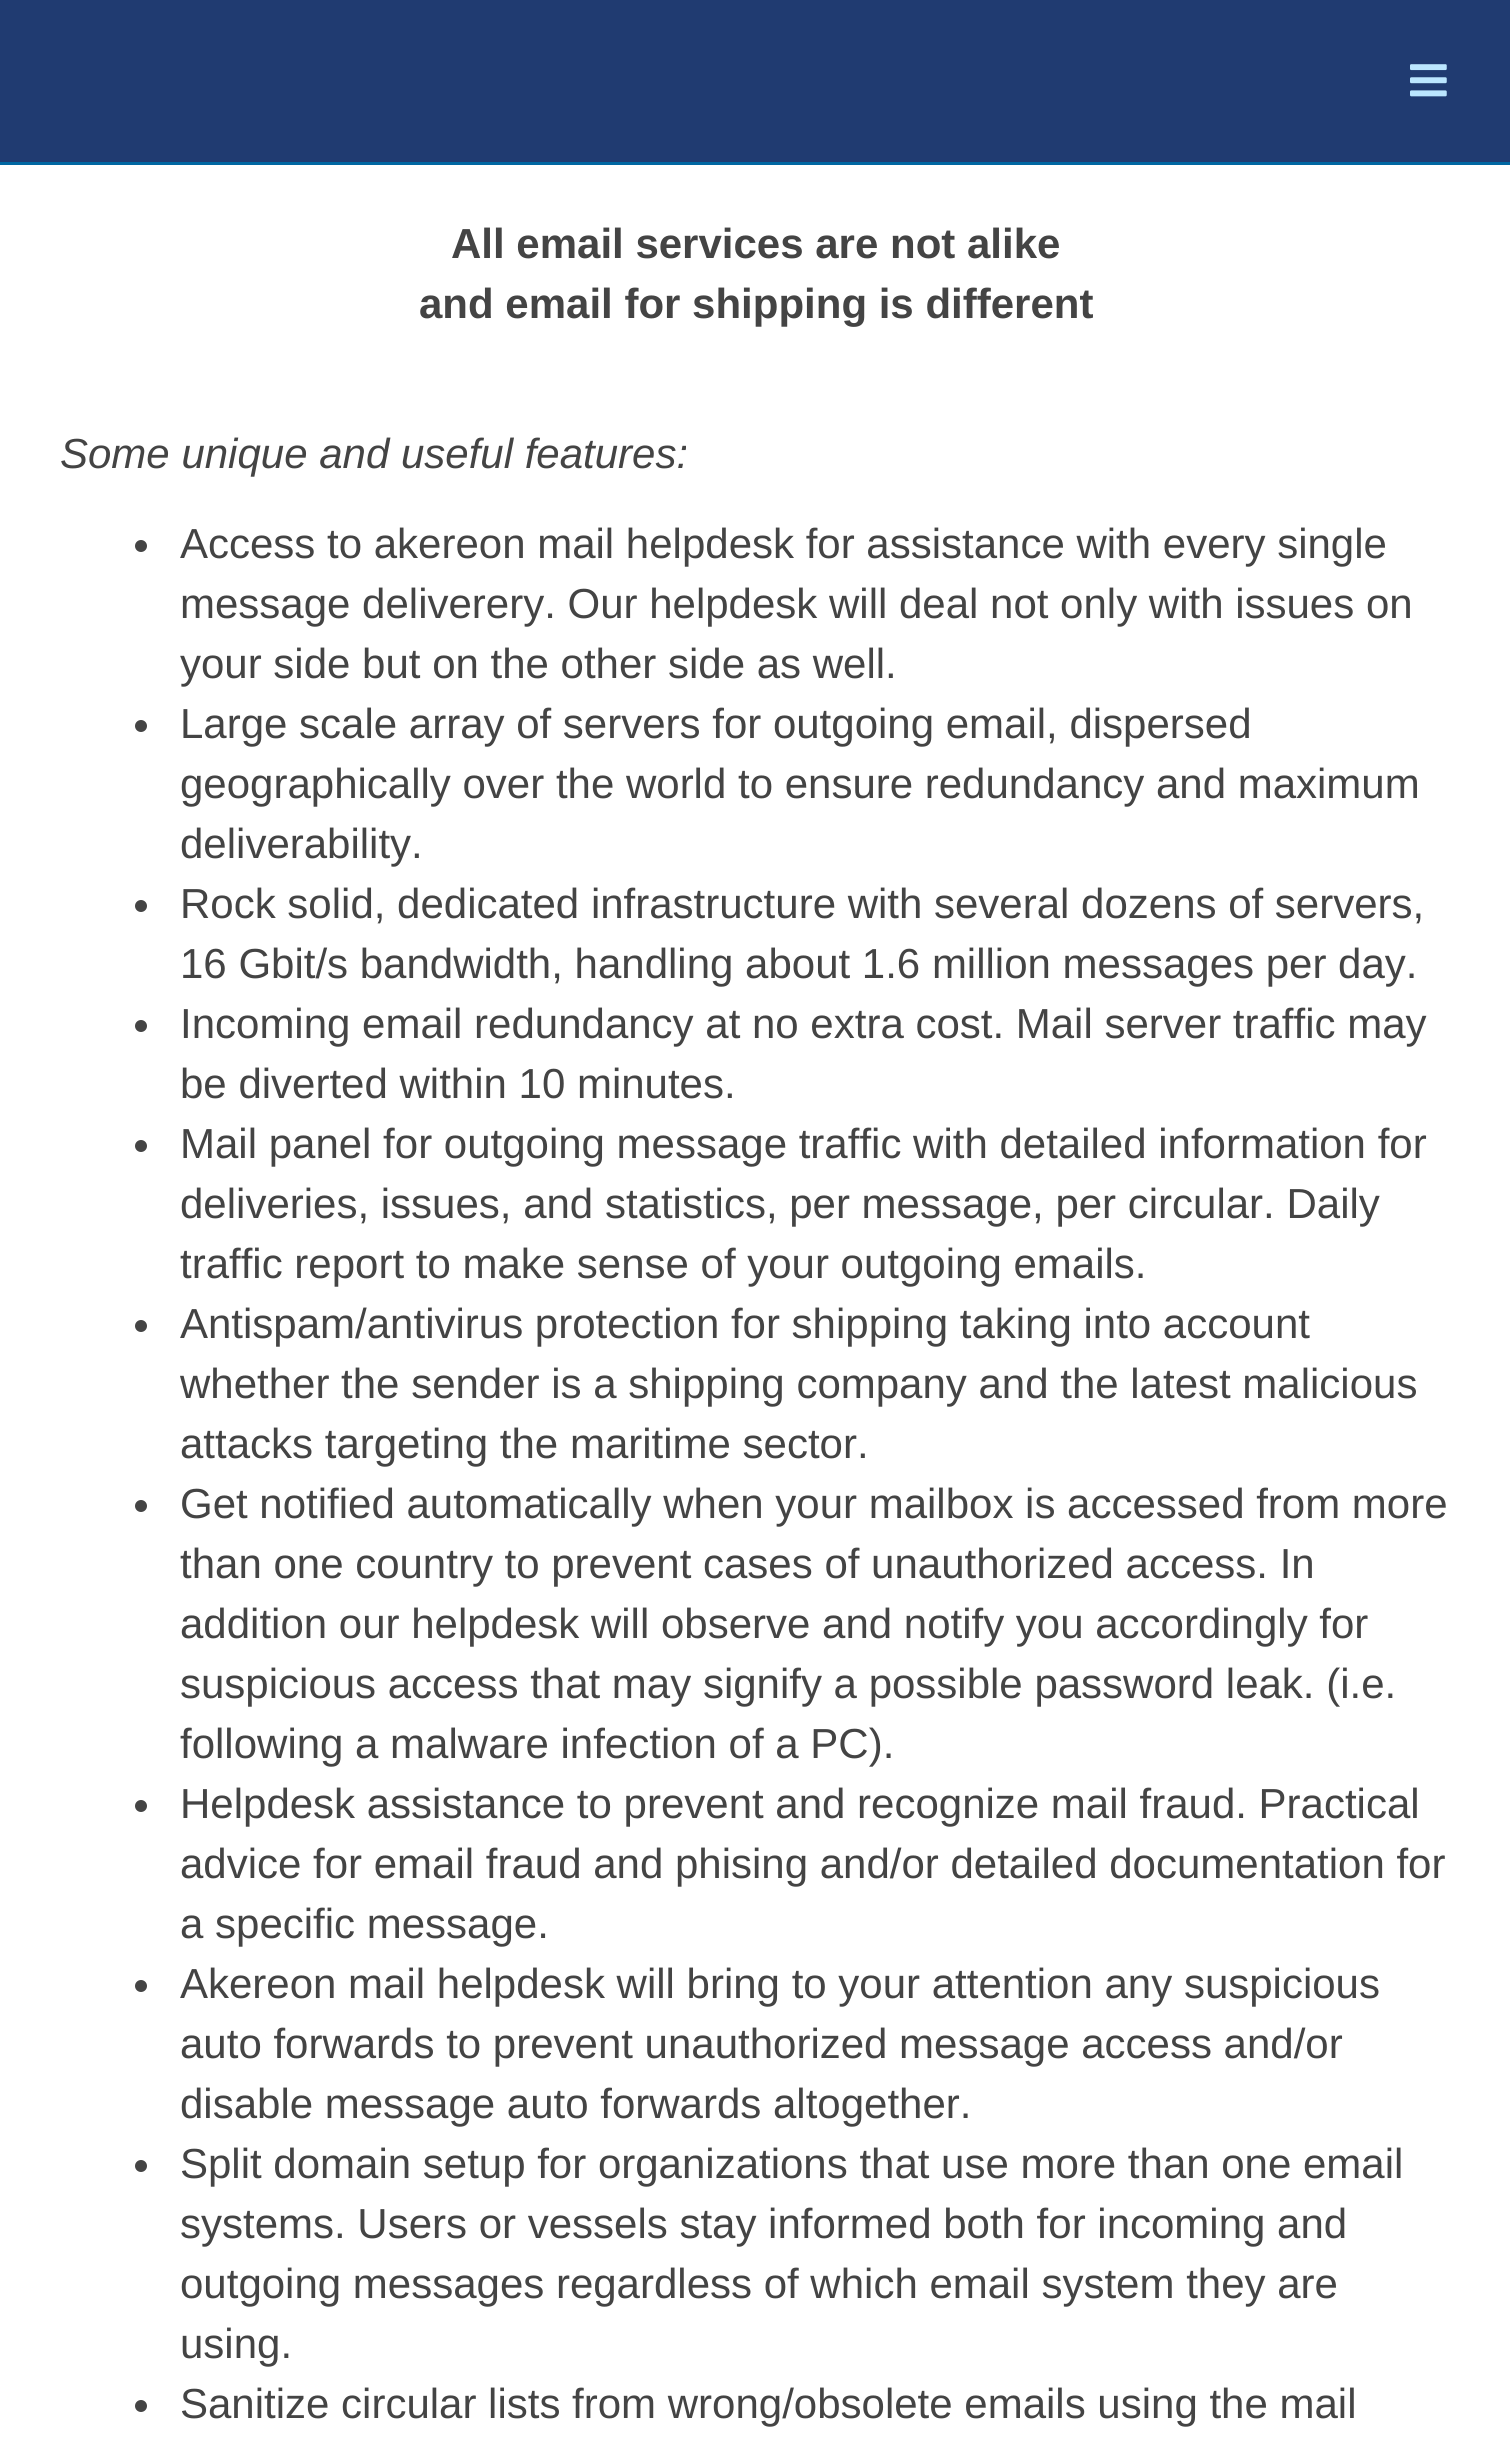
#include <cairo.h>
#include <math.h>
#include <stddef.h>

static cairo_t *c;
static void C(unsigned color){cairo_set_source_rgb(c, (color >> 16) / 255.0, (color >> 8 & 255) / 255.0, (color & 255) / 255.0);}
static void F(const char *family, double size, int italic, int bold){cairo_select_font_face(c, family, italic ? CAIRO_FONT_SLANT_ITALIC : CAIRO_FONT_SLANT_NORMAL,bold ? CAIRO_FONT_WEIGHT_BOLD : CAIRO_FONT_WEIGHT_NORMAL);cairo_set_font_size(c, size);}
static void T(double x, double y, const char *s){cairo_move_to(c, x, y);cairo_show_text(c, s);}
static void R(double x, double y, double w, double h){cairo_rectangle(c, x, y, w, h);cairo_fill(c);}
static void I(const char *path, double x, double y, double w, double h){cairo_surface_t *image = cairo_image_surface_create_from_png(path);cairo_save(c);cairo_set_source_surface(c, image, x, y);cairo_rectangle(c, x, y, w, h);cairo_fill(c);cairo_restore(c);cairo_surface_destroy(image);}
int main(void) {
cairo_surface_t *surface = cairo_image_surface_create(CAIRO_FORMAT_RGB24, 1510, 2441);
c = cairo_create(surface);
cairo_font_options_t *options = cairo_font_options_create();
cairo_font_options_set_hint_metrics(options, CAIRO_HINT_METRICS_OFF);
cairo_font_options_set_hint_style(options, CAIRO_HINT_STYLE_NONE);
cairo_set_font_options(c, options);
cairo_set_miter_limit(c, 4);
C(0xffffff);
cairo_paint(c);
C(0x203b71);
R(0,0,1510,162);
C(0x0067a2);
R(0,162,1510,3);
I("1.png",1410,64,37,33);
F("Liberation Sans",42,0,1);
C(0x444444);
T(451,258,"All email services are not alike");
T(419,318,"and email for shipping is different");
F("Liberation Sans",42,1,0);
T(60,468,"Some unique and useful features:");
cairo_new_path(c);
cairo_arc(c,141,546,6,0,2 * M_PI);
cairo_fill(c);
F("Liberation Sans",42,0,0);
T(180,558,"Access to akereon mail helpdesk for assistance with every single");
T(180,618,"message deliverery. Our helpdesk will deal not only with issues on");
T(180,678,"your side but on the other side as well.");
cairo_new_path(c);
cairo_arc(c,141,726,6,0,2 * M_PI);
cairo_fill(c);
T(180,738,"Large scale array of servers for outgoing email, dispersed");
T(180,798,"geographically over the world to ensure redundancy and maximum");
T(180,858,"deliverability.");
cairo_new_path(c);
cairo_arc(c,141,906,6,0,2 * M_PI);
cairo_fill(c);
T(180,918,"Rock solid, dedicated infrastructure with several dozens of servers,");
T(180,978,"16 Gbit/s bandwidth, handling about 1.6 million messages per day.");
cairo_new_path(c);
cairo_arc(c,141,1026,6,0,2 * M_PI);
cairo_fill(c);
T(180,1038,"Incoming email redundancy at no extra cost. Mail server traffic may");
T(180,1098,"be diverted within 10 minutes.");
cairo_new_path(c);
cairo_arc(c,141,1146,6,0,2 * M_PI);
cairo_fill(c);
T(180,1158,"Mail panel for outgoing message traffic with detailed information for");
T(180,1218,"deliveries, issues, and statistics, per message, per circular. Daily");
T(180,1278,"traffic report to make sense of your outgoing emails.");
cairo_new_path(c);
cairo_arc(c,141,1326,6,0,2 * M_PI);
cairo_fill(c);
T(180,1338,"Antispam/antivirus protection for shipping taking into account");
T(180,1398,"whether the sender is a shipping company and the latest malicious");
T(180,1458,"attacks targeting the maritime sector.");
cairo_new_path(c);
cairo_arc(c,141,1506,6,0,2 * M_PI);
cairo_fill(c);
T(180,1518,"Get notified automatically when your mailbox is accessed from more");
T(180,1578,"than one country to prevent cases of unauthorized access. In");
T(180,1638,"addition our helpdesk will observe and notify you accordingly for");
T(180,1698,"suspicious access that may signify a possible password leak. (i.e.");
T(180,1758,"following a malware infection of a PC).");
cairo_new_path(c);
cairo_arc(c,141,1806,6,0,2 * M_PI);
cairo_fill(c);
T(180,1818,"Helpdesk assistance to prevent and recognize mail fraud. Practical");
T(180,1878,"advice for email fraud and phising and/or detailed documentation for");
T(180,1938,"a specific message.");
cairo_new_path(c);
cairo_arc(c,141,1986,6,0,2 * M_PI);
cairo_fill(c);
T(180,1998,"Akereon mail helpdesk will bring to your attention any suspicious");
T(180,2058,"auto forwards to prevent unauthorized message access and/or");
T(180,2118,"disable message auto forwards altogether.");
cairo_new_path(c);
cairo_arc(c,141,2166,6,0,2 * M_PI);
cairo_fill(c);
T(180,2178,"Split domain setup for organizations that use more than one email");
T(180,2238,"systems. Users or vessels stay informed both for incoming and");
T(180,2298,"outgoing messages regardless of which email system they are");
T(180,2358,"using.");
cairo_new_path(c);
cairo_arc(c,141,2406,6,0,2 * M_PI);
cairo_fill(c);
T(180,2418,"Sanitize circular lists from wrong/obsolete emails using the mail");
cairo_surface_write_to_png(surface, "o.png");
cairo_font_options_destroy(options);
cairo_destroy(c);
cairo_surface_destroy(surface);
return 0;
}
